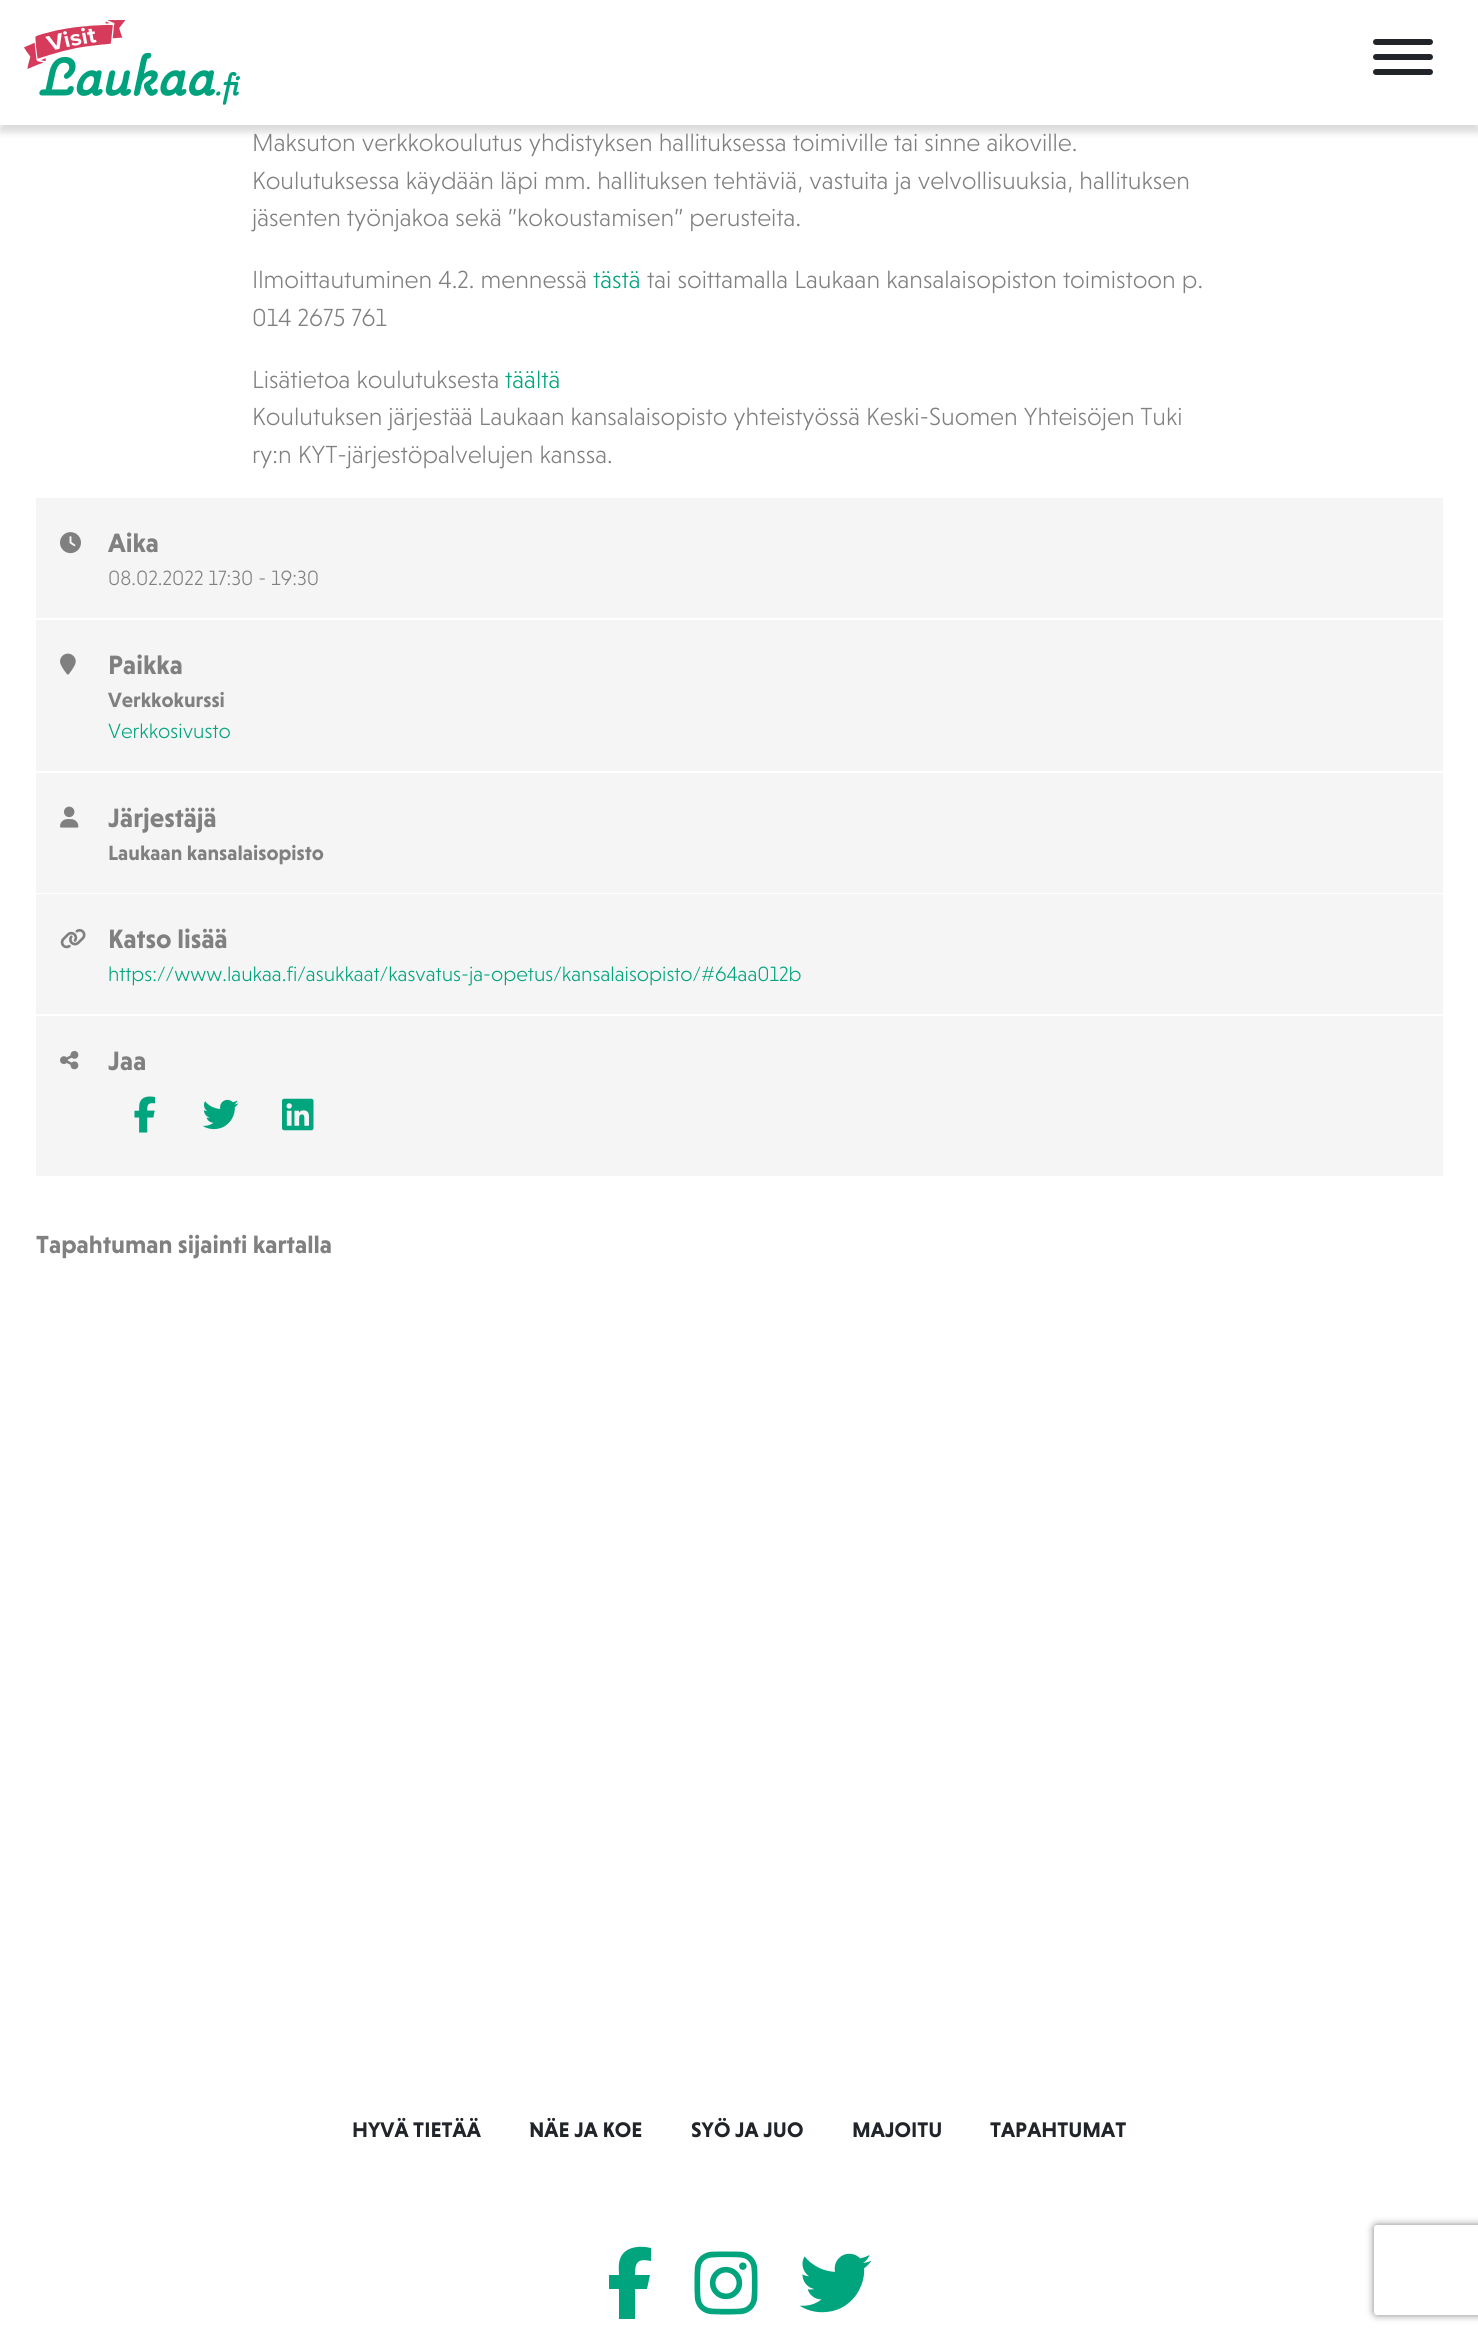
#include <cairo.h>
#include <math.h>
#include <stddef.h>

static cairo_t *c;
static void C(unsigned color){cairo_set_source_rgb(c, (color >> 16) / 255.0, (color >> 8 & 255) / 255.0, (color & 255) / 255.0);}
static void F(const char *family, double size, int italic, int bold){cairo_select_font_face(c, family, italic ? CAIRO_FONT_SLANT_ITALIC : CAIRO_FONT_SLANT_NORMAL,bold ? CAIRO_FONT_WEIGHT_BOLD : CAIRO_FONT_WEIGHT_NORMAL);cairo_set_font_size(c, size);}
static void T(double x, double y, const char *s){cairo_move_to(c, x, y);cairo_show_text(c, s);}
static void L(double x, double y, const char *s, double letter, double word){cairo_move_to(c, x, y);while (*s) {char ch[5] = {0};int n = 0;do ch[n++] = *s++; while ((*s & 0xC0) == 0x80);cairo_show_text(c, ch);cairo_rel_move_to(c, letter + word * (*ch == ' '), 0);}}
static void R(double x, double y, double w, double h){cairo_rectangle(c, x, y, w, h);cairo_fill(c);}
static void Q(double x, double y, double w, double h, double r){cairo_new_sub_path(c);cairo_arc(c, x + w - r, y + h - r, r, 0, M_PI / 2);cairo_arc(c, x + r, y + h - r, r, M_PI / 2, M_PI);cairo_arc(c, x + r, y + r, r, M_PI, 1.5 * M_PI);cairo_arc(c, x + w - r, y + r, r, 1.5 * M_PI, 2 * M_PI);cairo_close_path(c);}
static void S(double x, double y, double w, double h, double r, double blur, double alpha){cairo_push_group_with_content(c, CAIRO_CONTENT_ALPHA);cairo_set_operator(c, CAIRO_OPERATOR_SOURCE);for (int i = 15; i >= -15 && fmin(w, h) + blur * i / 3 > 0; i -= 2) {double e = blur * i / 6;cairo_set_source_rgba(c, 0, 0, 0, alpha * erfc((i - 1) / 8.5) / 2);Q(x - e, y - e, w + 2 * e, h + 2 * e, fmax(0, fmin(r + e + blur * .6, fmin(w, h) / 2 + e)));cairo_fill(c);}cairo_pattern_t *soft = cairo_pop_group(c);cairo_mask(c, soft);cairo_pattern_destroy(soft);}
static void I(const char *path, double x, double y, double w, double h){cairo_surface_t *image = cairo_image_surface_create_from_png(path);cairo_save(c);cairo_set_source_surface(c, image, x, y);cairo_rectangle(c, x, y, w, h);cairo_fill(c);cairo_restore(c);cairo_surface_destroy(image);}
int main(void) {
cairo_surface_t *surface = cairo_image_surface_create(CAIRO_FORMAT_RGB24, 1478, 2335);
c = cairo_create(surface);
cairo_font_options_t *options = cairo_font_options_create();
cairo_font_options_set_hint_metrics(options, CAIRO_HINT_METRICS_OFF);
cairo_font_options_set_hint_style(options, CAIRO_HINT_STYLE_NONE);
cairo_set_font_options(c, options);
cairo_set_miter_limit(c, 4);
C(0xffffff);
cairo_paint(c);
C(0x000000);
S(0,8,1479,124,0,4,.15);
C(0xffffff);
R(0,2,1478,123);
I("1.png",24,20,216,85);
C(0x212529);
Q(1373,54,60,6,3);
cairo_fill(c);
Q(1373,39,60,6,3);
cairo_fill(c);
Q(1373,69,60,6,3);
cairo_fill(c);
F("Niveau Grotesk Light",25.2,0,0);
C(0x808080);
T(252,151,"Maksuton verkkokoulutus yhdistyksen hallituksessa toimiville tai sinne aikoville.");
T(252,189,"Koulutuksessa käydään läpi mm. hallituksen tehtäviä, vastuita ja velvollisuuksia, hallituksen");
L(252,226,"jäsenten työnjakoa sekä ”kokoustamisen” perusteita.",0,-.25);
T(252,288,"Ilmoittautuminen 4.2. mennessä");
C(0x00a47d);
T(593,288,"tästä");
C(0x808080);
T(647,288,"tai soittamalla Laukaan kansalaisopiston toimistoon p.");
T(252,326,"014 2675 761");
T(252,388,"Lisätietoa koulutuksesta");
C(0x00a47d);
T(505,388,"täältä");
C(0x808080);
L(252,425,"Koulutuksen järjestää Laukaan kansalaisopisto yhteistyössä Keski-Suomen Yhteisöjen Tuki",0,-.25);
T(252,463,"ry:n KYT-järjestöpalvelujen kanssa.");
C(0xf5f5f5);
R(36,498,1407,120);
I("2.png",60,532,21,22);
F("Niveau Grotesk",27,0,1);
C(0x808080);
T(108,552,"Aika");
F("Niveau Grotesk Light",21,0,0);
T(108,585,"08.02.2022 17:30 - 19:30");
C(0xf5f5f5);
R(36,620,1407,151);
I("3.png",60,653,16,22);
F("Niveau Grotesk",27,0,1);
C(0x808080);
T(108,674,"Paikka");
F("Niveau Grotesk",21,0,1);
T(108,707,"Verkkokurssi");
F("Niveau Grotesk Light",21,0,0);
C(0x00a47d);
T(108,738,"Verkkosivusto");
C(0xf5f5f5);
R(36,773,1407,120);
I("4.png",60,806,19,22);
F("Niveau Grotesk",27,0,1);
C(0x808080);
T(108,827,"Järjestäjä");
F("Niveau Grotesk",21,0,1);
T(108,860,"Laukaan kansalaisopisto");
C(0xf5f5f5);
R(36,894,1407,120);
I("5.png",60,929,26,20);
F("Niveau Grotesk",27,0,1);
C(0x808080);
T(108,948,"Katso lisää");
F("Niveau Grotesk Light",21,0,0);
C(0x00a47d);
T(108,981,"https://www.laukaa.fi/asukkaat/kasvatus-ja-opetus/kansalaisopisto/#64aa012b");
C(0xf5f5f5);
R(36,1016,1407,160);
I("6.png",60,1051,19,19);
F("Niveau Grotesk",27,0,1);
C(0x808080);
T(108,1070,"Jaa");
I("7.png",134,1096,21,37);
I("8.png",202,1099,37,31);
I("9.png",282,1098,32,33);
F("Niveau Grotesk",25.2,0,1);
T(36,1253,"Tapahtuman sijainti kartalla");
F("Niveau Grotesk",21.5,0,1);
C(0x212529);
T(352,2137,"HYVÄ TIETÄÄ");
T(529,2137,"NÄE JA KOE");
T(691,2137,"SYÖ JA JUO");
T(852,2137,"MAJOITU");
T(990,2137,"TAPAHTUMAT");
C(0x00a47d);
cairo_new_path(c);
cairo_move_to(c,619,2289);
cairo_line_to(c,619,2319);
cairo_line_to(c,619,2289);
cairo_line_to(c,619,2319);
cairo_line_to(c,635,2319);
cairo_line_to(c,635,2289);
cairo_line_to(c,647,2289);
cairo_line_to(c,650,2275);
cairo_line_to(c,635,2275);
cairo_curve_to(c,635,2263,637,2258,651,2261);
cairo_line_to(c,651,2248);
cairo_curve_to(c,639,2245,624,2247,620,2259);
cairo_curve_to(c,618,2265,619,2270,619,2275);
cairo_line_to(c,609,2275);
cairo_line_to(c,609,2289);
cairo_close_path(c);
cairo_fill(c);
I("10.png",694,2251,64,64);
I("11.png",799,2253,73,60);
cairo_save(c);
cairo_set_fill_rule(c,CAIRO_FILL_RULE_EVEN_ODD);
cairo_new_path(c);
cairo_move_to(c,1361,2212);
cairo_line_to(c,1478,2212);
cairo_line_to(c,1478,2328);
cairo_line_to(c,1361,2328);
cairo_close_path(c);
cairo_move_to(c,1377,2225);
cairo_line_to(c,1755,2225);
cairo_curve_to(c,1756.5,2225,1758,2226.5,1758,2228);
cairo_line_to(c,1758,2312);
cairo_curve_to(c,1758,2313.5,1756.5,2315,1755,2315);
cairo_line_to(c,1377,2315);
cairo_curve_to(c,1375.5,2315,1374,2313.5,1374,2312);
cairo_line_to(c,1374,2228);
cairo_curve_to(c,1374,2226.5,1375.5,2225,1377,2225);
cairo_close_path(c);
cairo_clip(c);
C(0x808080);
S(1374,2225,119,90,3,4,1);
cairo_restore(c);
cairo_surface_write_to_png(surface, "o.png");
cairo_font_options_destroy(options);
cairo_destroy(c);
cairo_surface_destroy(surface);
return 0;
}
